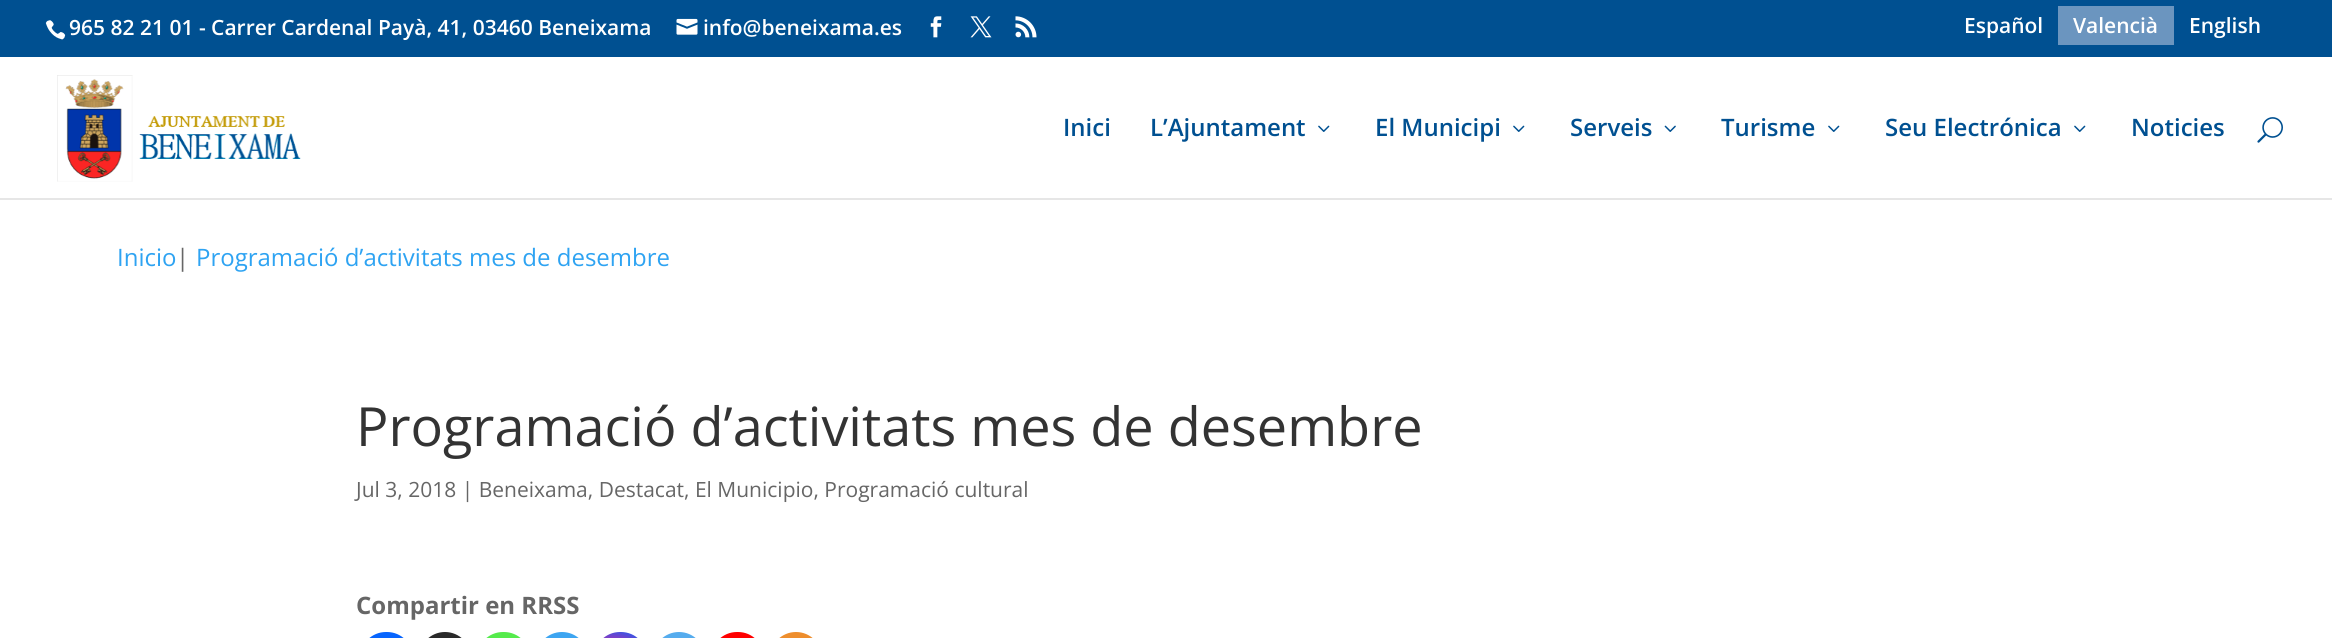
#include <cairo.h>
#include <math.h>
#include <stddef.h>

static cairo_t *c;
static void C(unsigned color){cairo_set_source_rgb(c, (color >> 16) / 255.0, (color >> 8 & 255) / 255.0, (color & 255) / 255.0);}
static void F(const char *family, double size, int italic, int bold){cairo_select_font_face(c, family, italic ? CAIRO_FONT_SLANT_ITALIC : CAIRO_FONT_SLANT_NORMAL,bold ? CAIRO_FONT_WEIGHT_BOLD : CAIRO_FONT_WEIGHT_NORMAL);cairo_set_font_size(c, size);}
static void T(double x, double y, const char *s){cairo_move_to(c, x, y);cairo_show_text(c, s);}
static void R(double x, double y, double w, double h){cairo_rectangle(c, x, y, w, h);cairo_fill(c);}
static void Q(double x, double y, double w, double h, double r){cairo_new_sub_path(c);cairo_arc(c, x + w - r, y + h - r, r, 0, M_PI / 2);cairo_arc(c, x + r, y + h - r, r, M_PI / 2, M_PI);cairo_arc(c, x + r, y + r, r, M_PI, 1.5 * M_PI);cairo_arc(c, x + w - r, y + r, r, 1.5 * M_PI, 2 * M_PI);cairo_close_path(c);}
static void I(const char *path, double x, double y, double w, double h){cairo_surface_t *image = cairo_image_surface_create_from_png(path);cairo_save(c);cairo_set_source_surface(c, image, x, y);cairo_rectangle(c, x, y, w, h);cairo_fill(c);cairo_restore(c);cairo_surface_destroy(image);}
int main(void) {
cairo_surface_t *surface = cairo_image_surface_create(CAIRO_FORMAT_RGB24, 2332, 638);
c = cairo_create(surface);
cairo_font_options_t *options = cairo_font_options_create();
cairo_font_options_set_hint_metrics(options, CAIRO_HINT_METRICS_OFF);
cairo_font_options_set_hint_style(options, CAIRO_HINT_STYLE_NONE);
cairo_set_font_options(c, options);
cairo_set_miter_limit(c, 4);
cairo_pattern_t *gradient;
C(0xffffff);
cairo_paint(c);
C(0x005091);
R(0,0,2332,57);
I("1.png",45,20,21,20);
F("Open Sans SemiBold",21,0,0);
C(0xffffff);
T(69,35,"965 82 21 01 - Carrer Cardenal Payà, 41, 03460 Beneixama");
I("2.png",676,18,22,17);
T(703,35,"info@beneixama.es");
I("3.png",930,16,12,22);
I("4.png",970,16,22,22);
I("5.png",1015,16,22,22);
T(1964,33,"Español");
C(0x6b95bf);
R(2058,6,116,39);
C(0xffffff);
T(2073,33,"Valencià");
T(2189,33,"English");
C(0xe6e6e6);
cairo_new_path(c);
cairo_move_to(c,0,198);
cairo_line_to(c,0,200);
cairo_line_to(c,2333,200);
cairo_line_to(c,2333,59);
cairo_line_to(c,2332,59);
cairo_line_to(c,2332,198);
cairo_close_path(c);
cairo_fill(c);
I("6.png",57,75,244,107);
F("Open Sans SemiBold",24,0,0);
C(0x005091);
T(1063,136,"Inici");
T(1150,136,"L’Ajuntament");
I("7.png",1318,125,12,7);
T(1375,136,"El Municipi");
I("7.png",1513,125,12,7);
T(1570,136,"Serveis");
I("8.png",1664,125,12,7);
T(1721,136,"Turisme");
I("7.png",1828,125,12,7);
T(1885,136,"Seu Electrónica");
I("7.png",2074,125,12,7);
T(2131,136,"Noticies");
I("9.png",2257,117,26,26);
F("Open Sans",24,0,0);
C(0x2ea3f2);
T(117,266,"Inicio");
C(0x666666);
T(176,266,"|");
C(0x2ea3f2);
T(196,266,"Programació d’activitats mes de desembre");
F("Open Sans",54,0,0);
C(0x333333);
T(356,446,"Programació d’activitats mes de desembre");
F("Open Sans",21,0,0);
C(0x666666);
T(356,497,"Jul 3, 2018 | Beneixama, Destacat, El Municipio, Programació cultural");
F("Open Sans",24,0,1);
T(356,614,"Compartir en RRSS");
C(0x0765fe);
Q(360,632,53,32,26);
cairo_fill(c);
C(0x2a2a2a);
Q(419,632,52,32,26);
cairo_fill(c);
C(0x55eb4c);
Q(477,632,53,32,26);
cairo_fill(c);
C(0x3da5f1);
Q(536,632,52,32,26);
cairo_fill(c);
gradient = cairo_pattern_create_radial(610,688,0,610,688,67);
cairo_pattern_add_color_stop_rgba(gradient,0,0.992,0.957,0.592,1);
cairo_pattern_add_color_stop_rgba(gradient,.05,0.992,0.957,0.592,1);
cairo_pattern_add_color_stop_rgba(gradient,.45,0.992,0.349,0.286,1);
cairo_pattern_add_color_stop_rgba(gradient,.6,0.839,0.141,0.624,1);
cairo_pattern_add_color_stop_rgba(gradient,.9,0.157,0.353,0.922,1);
cairo_set_source(c,gradient);
cairo_pattern_destroy(gradient);
Q(594,632,53,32,26);
cairo_fill(c);
C(0x55acee);
Q(653,632,52,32,26);
cairo_fill(c);
C(0xff0000);
Q(711,632,53,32,26);
cairo_fill(c);
C(0xee8e2d);
Q(770,632,52,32,26);
cairo_fill(c);
cairo_surface_write_to_png(surface, "o.png");
cairo_font_options_destroy(options);
cairo_destroy(c);
cairo_surface_destroy(surface);
return 0;
}
